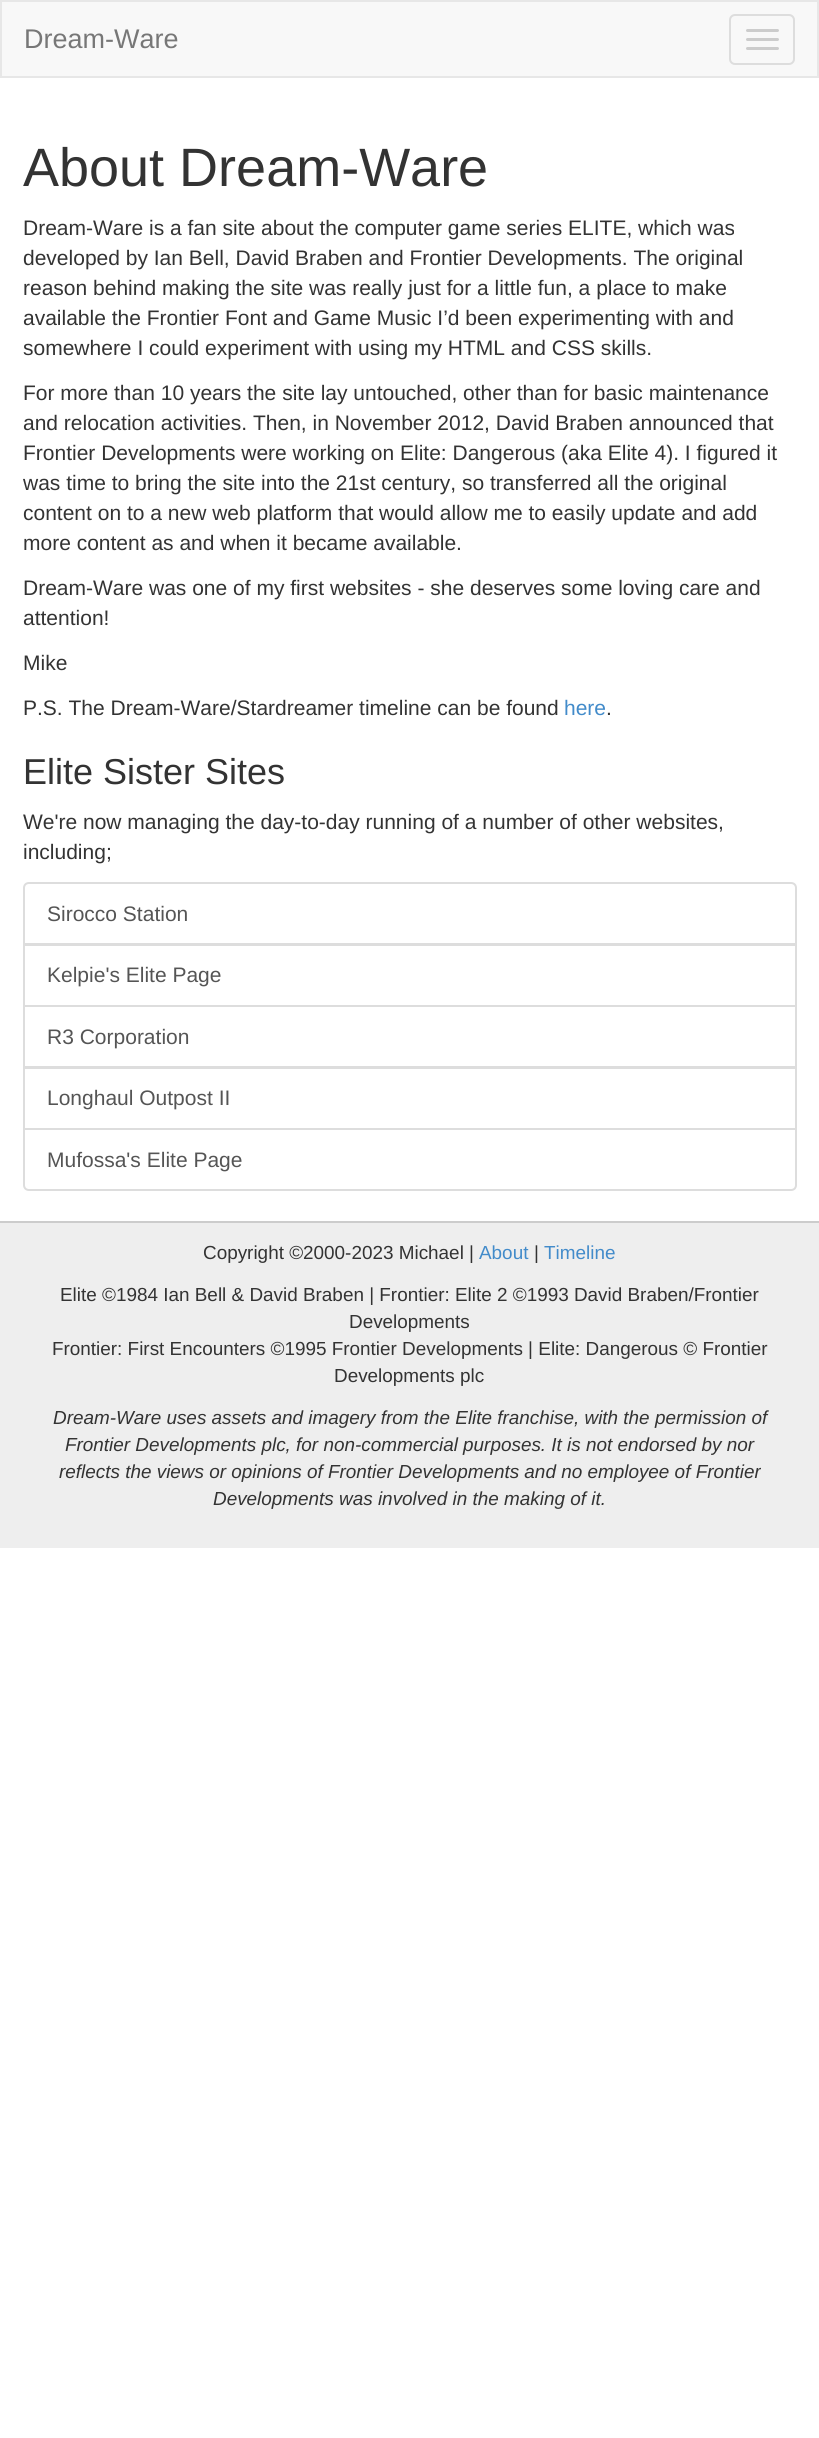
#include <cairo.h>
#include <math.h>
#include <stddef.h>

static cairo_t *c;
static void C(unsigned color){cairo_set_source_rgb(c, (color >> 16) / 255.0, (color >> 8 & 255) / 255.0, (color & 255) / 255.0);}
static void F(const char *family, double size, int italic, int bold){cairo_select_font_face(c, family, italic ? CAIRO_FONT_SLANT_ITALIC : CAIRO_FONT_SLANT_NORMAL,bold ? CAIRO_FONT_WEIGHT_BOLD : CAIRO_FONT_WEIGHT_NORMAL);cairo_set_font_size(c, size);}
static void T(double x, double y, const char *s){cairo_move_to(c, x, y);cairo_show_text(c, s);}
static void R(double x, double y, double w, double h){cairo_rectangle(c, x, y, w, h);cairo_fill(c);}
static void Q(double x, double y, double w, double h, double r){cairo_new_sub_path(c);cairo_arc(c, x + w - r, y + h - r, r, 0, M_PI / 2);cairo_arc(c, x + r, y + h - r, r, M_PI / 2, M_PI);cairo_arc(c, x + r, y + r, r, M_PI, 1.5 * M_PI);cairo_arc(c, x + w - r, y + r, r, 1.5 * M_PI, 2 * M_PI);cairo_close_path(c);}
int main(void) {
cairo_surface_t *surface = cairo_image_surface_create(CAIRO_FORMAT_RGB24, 819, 2438);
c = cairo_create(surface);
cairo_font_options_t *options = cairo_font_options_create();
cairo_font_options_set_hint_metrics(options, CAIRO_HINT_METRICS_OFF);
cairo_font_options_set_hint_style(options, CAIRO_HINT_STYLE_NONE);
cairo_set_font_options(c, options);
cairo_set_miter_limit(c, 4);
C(0xffffff);
cairo_paint(c);
C(0xf8f8f8);
cairo_rectangle(c,1,1,817,76);
cairo_fill_preserve(c);
C(0xe7e7e7);
cairo_stroke(c);
F("Liberation Sans",27,0,0);
C(0x777777);
T(24,48,"Dream-Ware");
Q(730,15,64,49,5);
C(0xdddddd);
cairo_stroke(c);
C(0xcccccc);
Q(746,29,33,3,1.5);
cairo_fill(c);
Q(746,38,33,3,1.5);
cairo_fill(c);
Q(746,47,33,3,1.5);
cairo_fill(c);
F("Liberation Sans",54,0,0);
C(0x333333);
T(23,186,"About Dream-Ware");
F("Liberation Sans",21,0,0);
T(23,235,"Dream-Ware is a fan site about the computer game series ELITE, which was");
T(23,265,"developed by Ian Bell, David Braben and Frontier Developments. The original");
T(23,295,"reason behind making the site was really just for a little fun, a place to make");
T(23,325,"available the Frontier Font and Game Music I’d been experimenting with and");
T(23,355,"somewhere I could experiment with using my HTML and CSS skills.");
T(23,400,"For more than 10 years the site lay untouched, other than for basic maintenance");
T(23,430,"and relocation activities. Then, in November 2012, David Braben announced that");
T(23,460,"Frontier Developments were working on Elite: Dangerous (aka Elite 4). I figured it");
T(23,490,"was time to bring the site into the 21st century, so transferred all the original");
T(23,520,"content on to a new web platform that would allow me to easily update and add");
T(23,550,"more content as and when it became available.");
T(23,595,"Dream-Ware was one of my first websites - she deserves some loving care and");
T(23,625,"attention!");
T(23,670,"Mike");
T(23,715,"P.S. The Dream-Ware/Stardreamer timeline can be found");
C(0x428bca);
T(564,715,"here");
C(0x333333);
T(606,715,".");
F("Liberation Sans",36,0,0);
T(23,784,"Elite Sister Sites");
F("Liberation Sans",21,0,0);
T(23,829,"We're now managing the day-to-day running of a number of other websites,");
T(23,859,"including;");
cairo_new_path(c);
cairo_move_to(c,29,883);
cairo_line_to(c,791,883);
cairo_curve_to(c,794,883,796,885,796,888);
cairo_line_to(c,796,944);
cairo_line_to(c,24,944);
cairo_line_to(c,24,888);
cairo_curve_to(c,24,885,26,883,29,883);
cairo_close_path(c);
C(0xdddddd);
cairo_stroke(c);
C(0x555555);
T(47,921,"Sirocco Station");
cairo_rectangle(c,24,945,772,61);
C(0xdddddd);
cairo_stroke(c);
C(0x555555);
T(47,982,"Kelpie's Elite Page");
cairo_rectangle(c,24,1006,772,61);
C(0xdddddd);
cairo_stroke(c);
C(0x555555);
T(47,1044,"R3 Corporation");
cairo_rectangle(c,24,1068,772,61);
C(0xdddddd);
cairo_stroke(c);
C(0x555555);
T(47,1105,"Longhaul Outpost II");
C(0xffffff);
cairo_new_path(c);
cairo_move_to(c,24,1129);
cairo_line_to(c,796,1129);
cairo_line_to(c,796,1185);
cairo_curve_to(c,796,1188,794,1190,791,1190);
cairo_line_to(c,29,1190);
cairo_curve_to(c,26,1190,24,1188,24,1185);
cairo_close_path(c);
cairo_fill_preserve(c);
C(0xdddddd);
cairo_stroke(c);
C(0x555555);
T(47,1167,"Mufossa's Elite Page");
C(0xeeeeee);
R(0,1223,819,325);
C(0xcccccc);
R(0,1221,819,2);
F("Liberation Sans",18.9,0,0);
C(0x333333);
T(203,1259,"Copyright ©2000-2023 Michael |");
C(0x428bca);
T(479,1259,"About");
C(0x333333);
T(534,1259,"|");
C(0x428bca);
T(544,1259,"Timeline");
C(0x333333);
T(60,1301,"Elite ©1984 Ian Bell & David Braben | Frontier: Elite 2 ©1993 David Braben/Frontier");
T(349,1328,"Developments");
T(52,1355,"Frontier: First Encounters ©1995 Frontier Developments | Elite: Dangerous © Frontier");
T(334,1382,"Developments plc");
F("Liberation Sans",18.9,1,0);
T(53,1424,"Dream-Ware uses assets and imagery from the Elite franchise, with the permission of");
T(65,1451,"Frontier Developments plc, for non-commercial purposes. It is not endorsed by nor");
T(59,1478,"reflects the views or opinions of Frontier Developments and no employee of Frontier");
T(213,1505,"Developments was involved in the making of it.");
cairo_surface_write_to_png(surface, "o.png");
cairo_font_options_destroy(options);
cairo_destroy(c);
cairo_surface_destroy(surface);
return 0;
}
